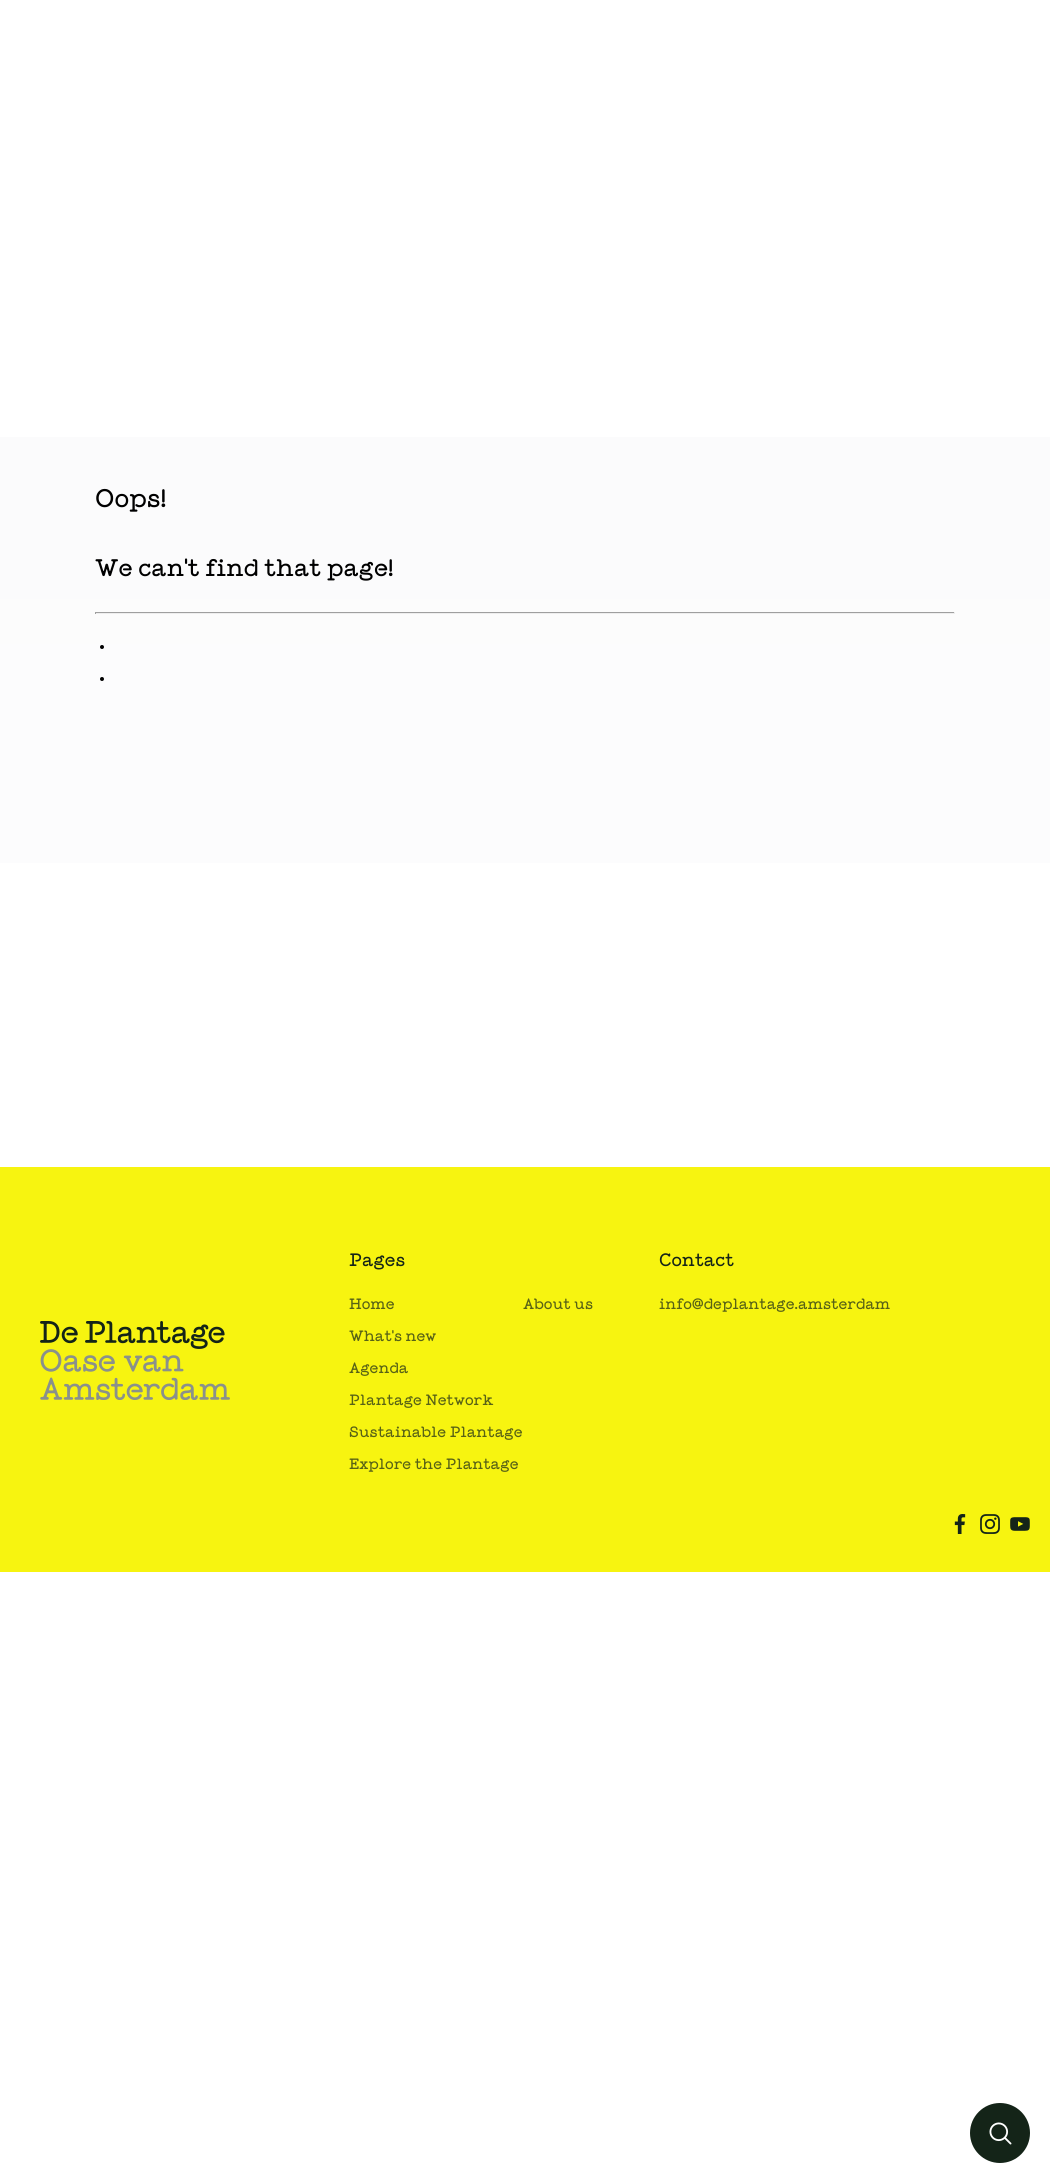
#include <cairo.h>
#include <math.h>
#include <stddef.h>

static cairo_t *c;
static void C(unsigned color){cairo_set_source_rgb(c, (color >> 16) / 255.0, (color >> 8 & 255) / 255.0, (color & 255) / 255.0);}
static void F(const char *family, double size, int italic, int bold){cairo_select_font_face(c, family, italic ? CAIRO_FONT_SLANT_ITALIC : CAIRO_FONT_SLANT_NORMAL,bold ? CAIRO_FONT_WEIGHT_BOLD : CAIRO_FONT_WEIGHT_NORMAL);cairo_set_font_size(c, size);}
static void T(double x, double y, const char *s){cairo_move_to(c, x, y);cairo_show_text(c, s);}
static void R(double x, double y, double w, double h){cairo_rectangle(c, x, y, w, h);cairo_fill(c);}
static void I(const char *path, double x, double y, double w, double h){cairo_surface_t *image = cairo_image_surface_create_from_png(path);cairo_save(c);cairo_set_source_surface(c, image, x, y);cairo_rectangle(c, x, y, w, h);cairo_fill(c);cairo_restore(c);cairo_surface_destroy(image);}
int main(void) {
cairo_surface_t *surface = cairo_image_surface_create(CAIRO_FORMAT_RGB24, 1050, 2183);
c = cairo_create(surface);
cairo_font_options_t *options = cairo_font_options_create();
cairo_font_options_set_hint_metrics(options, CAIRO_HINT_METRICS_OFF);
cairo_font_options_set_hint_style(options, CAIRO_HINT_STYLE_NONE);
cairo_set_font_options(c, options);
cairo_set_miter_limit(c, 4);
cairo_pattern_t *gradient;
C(0xffffff);
cairo_paint(c);
gradient = cairo_pattern_create_linear(525,437,525,1572);
cairo_pattern_add_color_stop_rgba(gradient,0,1,1,1,1);
cairo_pattern_add_color_stop_rgba(gradient,0,0.984,0.984,0.988,1);
cairo_pattern_add_color_stop_rgba(gradient,1,1,1,1,1);
cairo_set_source(c,gradient);
cairo_pattern_destroy(gradient);
R(0,437,1050,426);
F("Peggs",25.5,0,1);
C(0x000000);
T(95,507,"Oops!");
F("Peggs",24,0,1);
T(95,576,"We can't find that page!");
C(0x9f9f9f);
R(95,612,860,1);
C(0xeeeeee);
R(954,612,1,2);
R(95,613,860,1);
C(0x9f9f9f);
R(95,612,1,2);
C(0x000000);
cairo_new_path(c);
cairo_arc(c,102,647,2,0,2 * M_PI);
cairo_fill(c);
cairo_arc(c,102,679,2,0,2 * M_PI);
cairo_fill(c);
C(0xf7f410);
R(0,1167,1050,405);
F("Peggs",18,0,1);
C(0x142418);
T(349,1266,"Pages");
F("Peggs",15,0,1);
C(0x586216);
T(349,1309,"Home");
T(523,1309,"About us");
T(349,1341,"What's new");
T(349,1373,"Agenda");
T(349,1405,"Plantage Network");
T(349,1437,"Sustainable Plantage");
T(349,1469,"Explore the Plantage");
F("Peggs",18,0,1);
C(0x142418);
T(659,1266,"Contact");
F("Peggs",15,0,1);
C(0x586216);
T(659,1309,"info@deplantage.amsterdam");
I("1.png",40,1321,190,79);
I("2.png",954,1514,12,20);
I("3.png",980,1514,20,20);
I("4.png",1010,1517,20,14);
C(0x142418);
cairo_arc(c,1000,2133,30,0,2 * M_PI);
cairo_fill(c);
I("5.png",989,2122,23,23);
cairo_surface_write_to_png(surface, "o.png");
cairo_font_options_destroy(options);
cairo_destroy(c);
cairo_surface_destroy(surface);
return 0;
}
